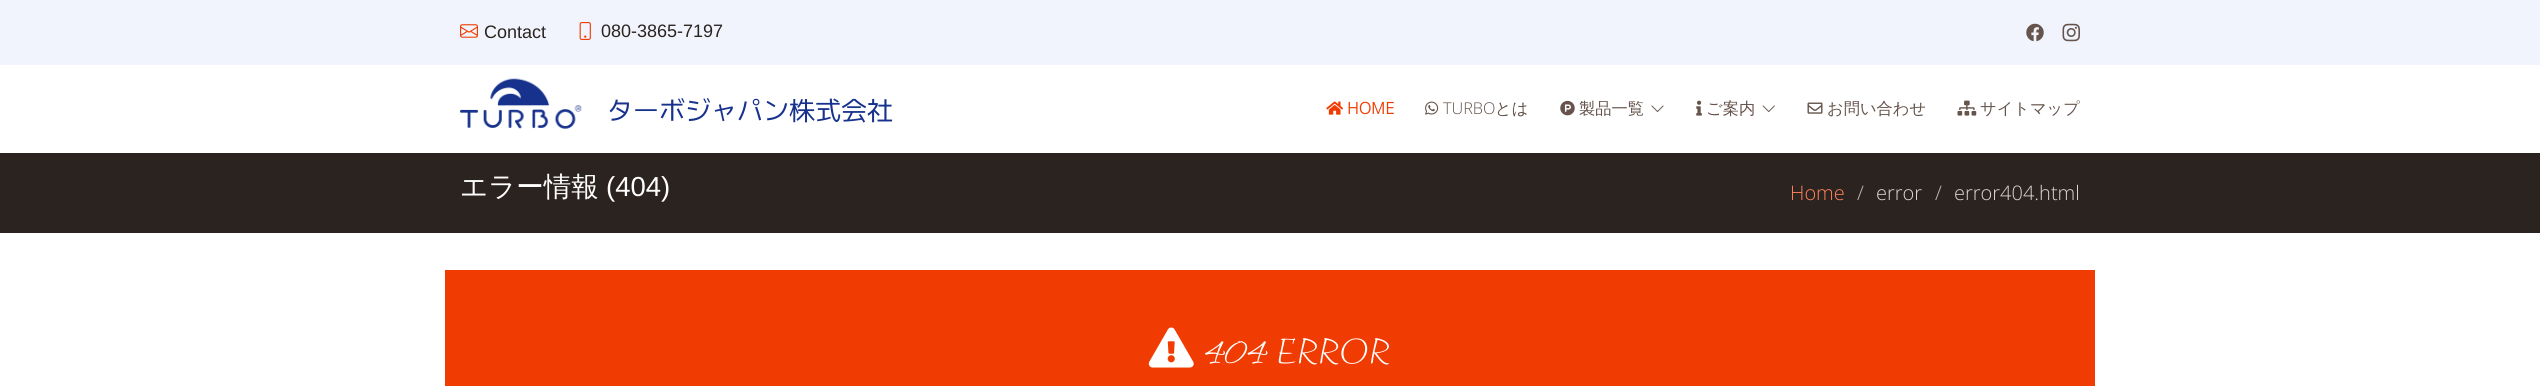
#include <cairo.h>
#include <math.h>
#include <stddef.h>

static cairo_t *c;
static void C(unsigned color){cairo_set_source_rgb(c, (color >> 16) / 255.0, (color >> 8 & 255) / 255.0, (color & 255) / 255.0);}
static void F(const char *family, double size, int italic, int bold){cairo_select_font_face(c, family, italic ? CAIRO_FONT_SLANT_ITALIC : CAIRO_FONT_SLANT_NORMAL,bold ? CAIRO_FONT_WEIGHT_BOLD : CAIRO_FONT_WEIGHT_NORMAL);cairo_set_font_size(c, size);}
static void T(double x, double y, const char *s){cairo_move_to(c, x, y);cairo_show_text(c, s);}
static void R(double x, double y, double w, double h){cairo_rectangle(c, x, y, w, h);cairo_fill(c);}
static void I(const char *path, double x, double y, double w, double h){cairo_surface_t *image = cairo_image_surface_create_from_png(path);cairo_save(c);cairo_set_source_surface(c, image, x, y);cairo_rectangle(c, x, y, w, h);cairo_fill(c);cairo_restore(c);cairo_surface_destroy(image);}
int main(void) {
cairo_surface_t *surface = cairo_image_surface_create(CAIRO_FORMAT_RGB24, 2540, 386);
c = cairo_create(surface);
cairo_font_options_t *options = cairo_font_options_create();
cairo_font_options_set_hint_metrics(options, CAIRO_HINT_METRICS_OFF);
cairo_font_options_set_hint_style(options, CAIRO_HINT_STYLE_NONE);
cairo_set_font_options(c, options);
cairo_set_miter_limit(c, 4);
C(0xffffff);
cairo_paint(c);
C(0xf1f4fc);
R(0,0,2540,65);
I("1.png",460,24,18,14);
F("Liberation Sans",18,0,0);
C(0x2b2320);
T(484,38,"Contact");
I("2.png",579,22,12,18);
T(601,37,"080-3865-7197");
I("3.png",2026,23,18,19);
I("4.png",2062,23,18,19);
I("5.png",460,78,122,51);
F("Murecho Thin",26,0,0);
C(0x17328d);
T(607,120,"ターボジャパン株式会社");
I("6.png",1326,101,18,14);
F("Open Sans",16.25,0,1);
C(0xf03c02);
T(1347,114,"HOME");
I("7.png",1425,101,14,14);
F("Open Sans Light",16.25,0,0);
C(0x65534c);
T(1443,114,"TURBO");
F("WenQuanYi Zen Hei Medium",16.25,0,0);
T(1495,114,"とは");
I("8.png",1560,100,15,16);
T(1579,114,"製品一覧");
I("9.png",1651,105,13,7);
I("10.png",1696,100,6,16);
T(1706,114,"ご案内");
I("11.png",1762,105,13,7);
I("12.png",1807,102,16,12);
T(1827,114,"お問い合わせ");
I("13.png",1957,100,20,16);
T(1980,114,"サイトマップ");
C(0x2b2320);
R(0,153,2540,80);
F("WenQuanYi Zen Hei Medium",27.5,0,0);
C(0xffffff);
T(460,196,"エラー情報");
F("Liberation Sans",27.5,0,0);
T(606,196,"(404)");
F("Open Sans Light",20,0,0);
C(0xfe825a);
T(1790,200,"Home");
C(0xc8bab5);
T(1857,200,"/");
C(0xded5d2);
T(1876,200,"error");
C(0xc8bab5);
T(1935,200,"/");
C(0xded5d2);
T(1954,200,"error404.html");
C(0xf03c02);
R(445,270,1650,116);
I("14.png",1148,327,46,41);
F("Moon Dance",40,0,0);
C(0xffffff);
T(1204,363,"404 ERROR");
cairo_surface_write_to_png(surface, "o.png");
cairo_font_options_destroy(options);
cairo_destroy(c);
cairo_surface_destroy(surface);
return 0;
}
